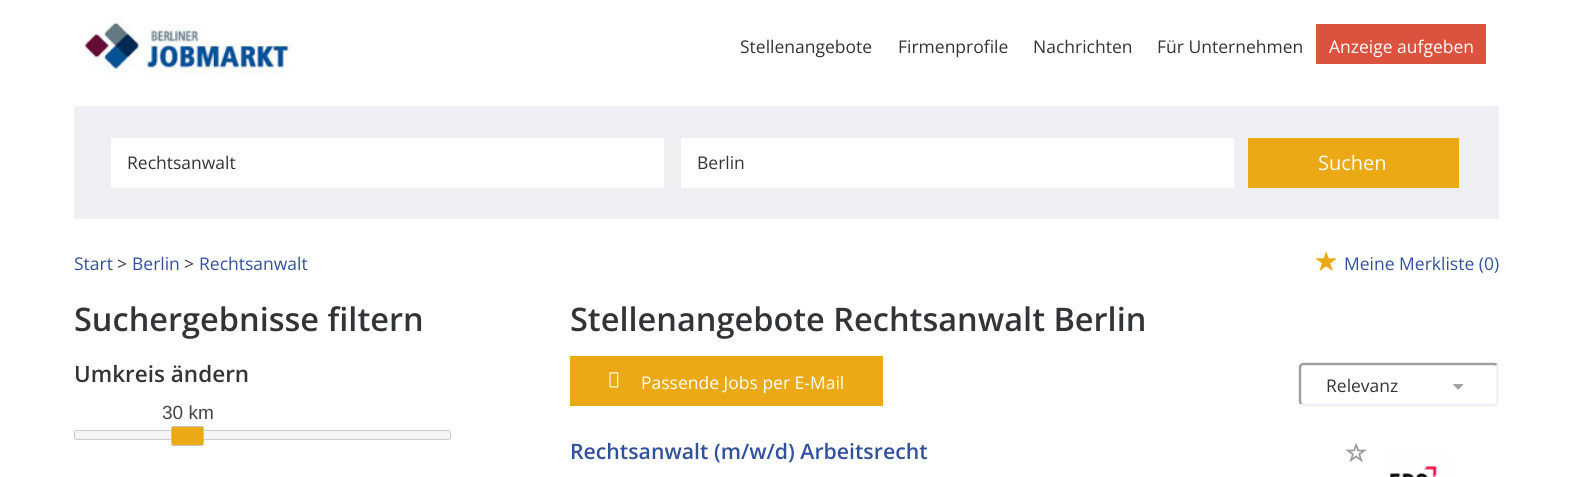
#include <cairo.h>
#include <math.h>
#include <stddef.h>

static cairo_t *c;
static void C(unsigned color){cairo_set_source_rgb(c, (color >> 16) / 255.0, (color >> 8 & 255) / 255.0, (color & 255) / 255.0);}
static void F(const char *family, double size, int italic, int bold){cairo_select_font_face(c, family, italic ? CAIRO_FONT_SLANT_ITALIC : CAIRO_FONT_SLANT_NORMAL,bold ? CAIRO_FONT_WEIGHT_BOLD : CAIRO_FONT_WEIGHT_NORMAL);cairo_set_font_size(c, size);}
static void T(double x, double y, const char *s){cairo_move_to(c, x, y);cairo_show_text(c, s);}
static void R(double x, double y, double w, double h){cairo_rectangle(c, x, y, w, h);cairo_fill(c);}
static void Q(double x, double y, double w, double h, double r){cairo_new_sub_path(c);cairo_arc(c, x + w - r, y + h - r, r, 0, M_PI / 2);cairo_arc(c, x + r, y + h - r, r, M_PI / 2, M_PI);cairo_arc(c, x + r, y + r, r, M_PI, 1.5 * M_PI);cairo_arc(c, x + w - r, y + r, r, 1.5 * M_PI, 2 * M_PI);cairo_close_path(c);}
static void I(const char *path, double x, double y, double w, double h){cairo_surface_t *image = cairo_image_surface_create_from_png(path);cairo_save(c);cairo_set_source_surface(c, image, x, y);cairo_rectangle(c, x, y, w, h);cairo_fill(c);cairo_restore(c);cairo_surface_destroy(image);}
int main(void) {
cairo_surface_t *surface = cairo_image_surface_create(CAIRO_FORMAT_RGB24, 1572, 477);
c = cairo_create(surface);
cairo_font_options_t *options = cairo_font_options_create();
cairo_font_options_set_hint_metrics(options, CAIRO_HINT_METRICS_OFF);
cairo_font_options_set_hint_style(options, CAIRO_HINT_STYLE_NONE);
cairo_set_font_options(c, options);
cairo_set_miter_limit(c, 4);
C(0xffffff);
cairo_paint(c);
I("1.png",84,15,210,60);
F("Open Sans",17.5,0,0);
C(0x323437);
T(740,53,"Stellenangebote");
T(898,53,"Firmenprofile");
T(1033,53,"Nachrichten");
T(1157,53,"Für Unternehmen");
C(0xdb523f);
R(1316,24,170,40);
C(0xffffff);
T(1329,53,"Anzeige aufgeben");
C(0xeef0f3);
R(74,106,1425,113);
C(0xffffff);
R(111,138,553,50);
C(0x323437);
T(127,169,"Rechtsanwalt");
C(0xffffff);
R(681,138,553,50);
C(0x323437);
T(697,169,"Berlin");
C(0xeba915);
R(1248,138,211,50);
F("Open Sans",20,0,0);
C(0xffffff);
T(1318,170,"Suchen");
F("Open Sans",17.5,0,0);
C(0x31519d);
T(74,270,"Start");
C(0x323437);
T(117,270,">");
C(0x31519d);
T(132,270,"Berlin");
C(0x323437);
T(184,270,">");
C(0x31519d);
T(199,270,"Rechtsanwalt");
I("2.png",1315,251,22,20);
T(1344,270,"Meine Merkliste (0)");
F("Open Sans SemiBold",32.5,0,0);
C(0x323437);
T(74,331,"Suchergebnisse filtern");
F("Open Sans SemiBold",22.5,0,0);
T(74,382,"Umkreis ändern");
C(0xf5f5f5);
Q(74.5,430.5,376,9,2);
cairo_fill_preserve(c);
C(0xcccccc);
cairo_set_line_width(c,1);
cairo_stroke(c);
C(0xeba915);
Q(171.5,426.5,32,19,2);
cairo_fill_preserve(c);
C(0xc5c5c5);
cairo_stroke(c);
F("Liberation Sans",19,0,0);
C(0x454545);
T(162,419,"30 km");
F("Open Sans SemiBold",32.5,0,0);
C(0x323437);
T(570,331,"Stellenangebote Rechtsanwalt Berlin");
C(0xeba915);
R(570,356,313,50);
I("3.png",609,372,10,16);
F("Open Sans",17.5,0,0);
C(0xffffff);
T(641,389,"Passende Jobs per E-Mail");
cairo_new_path(c);
cairo_move_to(c,1496.5,365);
cairo_curve_to(c,1497,365.5,1497.5,366.5,1497.5,367.5);
cairo_line_to(c,1497.5,401);
cairo_curve_to(c,1497.5,402,1497,403,1496.5,404);
cairo_curve_to(c,1495.5,404.5,1494.5,405,1494,405);
cairo_line_to(c,1304,405);
cairo_curve_to(c,1303,405,1302,404.5,1301,404);
C(0xeef0f3);
cairo_set_line_width(c,2.5);
cairo_stroke(c);
cairo_new_path(c);
cairo_move_to(c,1301,404);
cairo_curve_to(c,1300.5,403,1300,402,1300,401);
cairo_line_to(c,1300,367.5);
cairo_curve_to(c,1300,366.5,1300.5,365.5,1301,365);
cairo_curve_to(c,1302,364,1303,364,1304,364);
cairo_line_to(c,1494,364);
cairo_curve_to(c,1494.5,364,1495.5,364,1496.5,365);
C(0x9fa0a2);
cairo_stroke(c);
C(0x323437);
T(1326,392,"Relevanz");
I("4.png",1453,384,11,6);
F("Open Sans SemiBold",21.25,0,0);
C(0x31519d);
T(570,459,"Rechtsanwalt (m/w/d) Arbeitsrecht");
I("5.png",1345,443,22,19);
I("6.png",1383,452,69,25);
cairo_surface_write_to_png(surface, "o.png");
cairo_font_options_destroy(options);
cairo_destroy(c);
cairo_surface_destroy(surface);
return 0;
}
